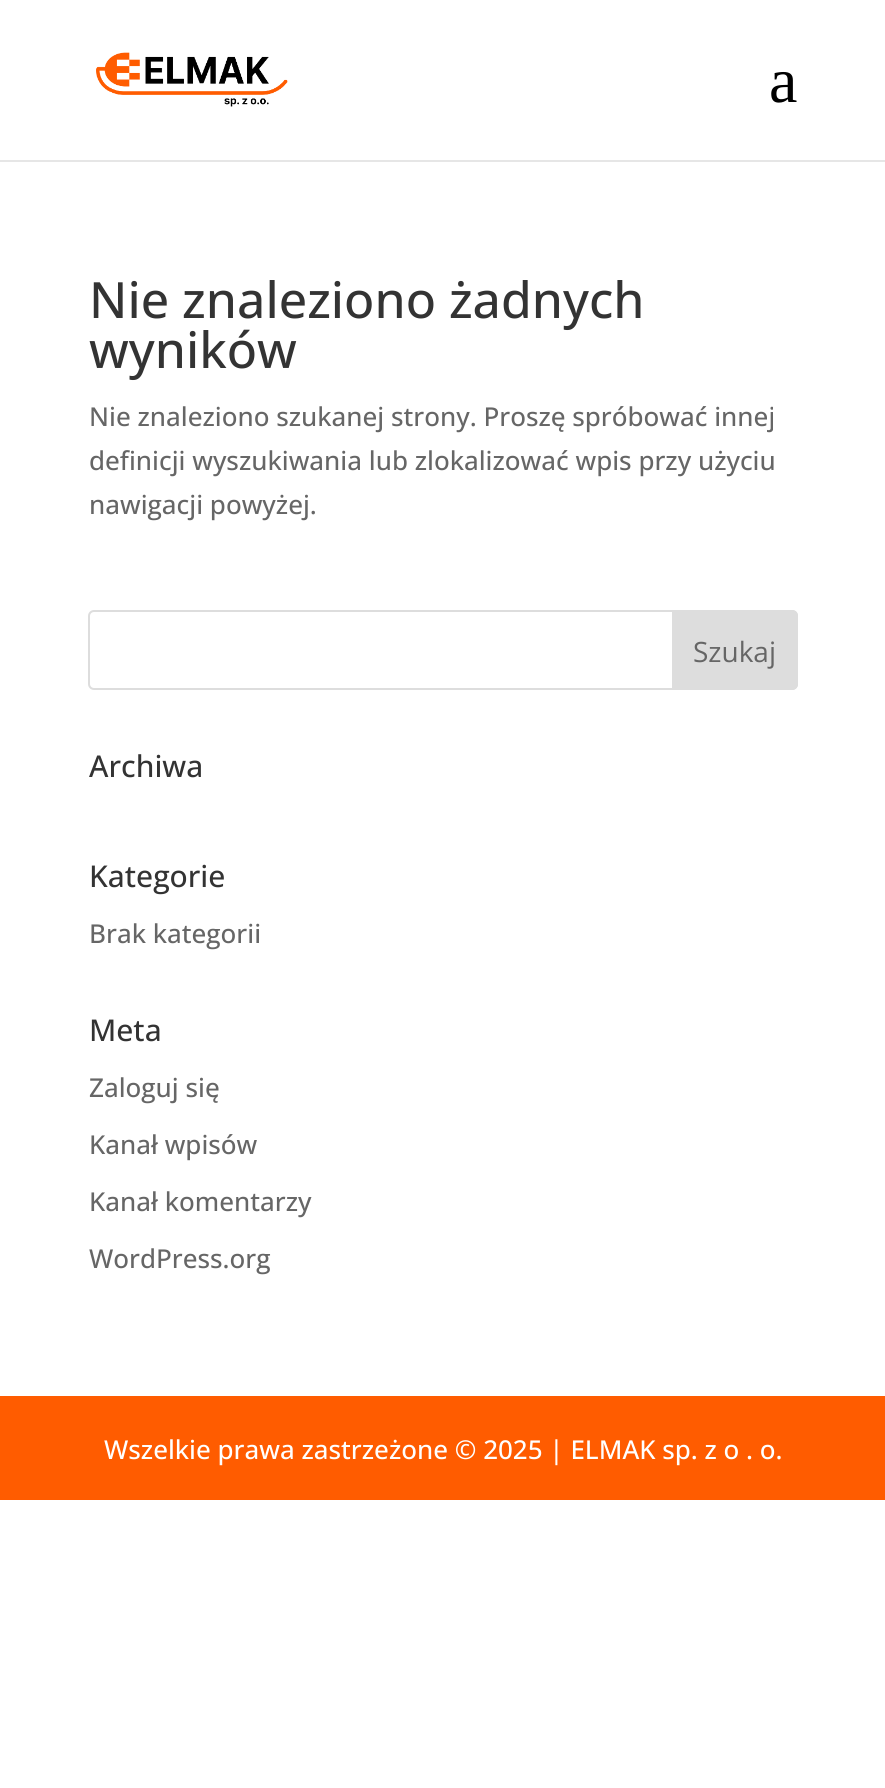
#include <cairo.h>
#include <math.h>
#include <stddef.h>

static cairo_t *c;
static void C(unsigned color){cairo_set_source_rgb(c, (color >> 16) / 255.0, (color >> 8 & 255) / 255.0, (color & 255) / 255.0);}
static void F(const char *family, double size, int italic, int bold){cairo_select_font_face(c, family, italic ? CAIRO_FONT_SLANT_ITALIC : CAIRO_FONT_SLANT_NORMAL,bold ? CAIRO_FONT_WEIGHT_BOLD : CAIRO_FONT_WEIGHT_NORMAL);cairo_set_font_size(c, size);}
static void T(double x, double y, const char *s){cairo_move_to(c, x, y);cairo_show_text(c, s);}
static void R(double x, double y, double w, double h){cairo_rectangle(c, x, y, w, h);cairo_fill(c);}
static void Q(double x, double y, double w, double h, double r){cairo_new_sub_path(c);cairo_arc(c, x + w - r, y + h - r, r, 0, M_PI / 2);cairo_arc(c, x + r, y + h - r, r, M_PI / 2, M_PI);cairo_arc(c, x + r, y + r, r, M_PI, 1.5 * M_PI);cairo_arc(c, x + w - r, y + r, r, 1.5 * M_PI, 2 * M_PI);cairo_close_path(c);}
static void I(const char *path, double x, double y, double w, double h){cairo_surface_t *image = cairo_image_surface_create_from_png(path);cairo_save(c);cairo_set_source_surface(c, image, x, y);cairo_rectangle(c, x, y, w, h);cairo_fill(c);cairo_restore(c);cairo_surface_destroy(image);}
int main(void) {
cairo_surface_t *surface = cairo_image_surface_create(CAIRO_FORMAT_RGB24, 885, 1788);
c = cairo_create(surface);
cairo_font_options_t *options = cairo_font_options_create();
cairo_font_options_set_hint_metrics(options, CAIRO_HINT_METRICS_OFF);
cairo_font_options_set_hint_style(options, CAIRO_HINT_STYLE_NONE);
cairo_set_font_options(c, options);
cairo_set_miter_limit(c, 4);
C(0xffffff);
cairo_paint(c);
C(0xe6e6e6);
R(0,160,885,2);
I("1.png",96,52,192,55);
F("Liberation Serif",64,0,0);
C(0x000000);
T(769,102,"a");
F("Open Sans Medium",50,0,0);
C(0x333333);
T(89,318,"Nie znaleziono żadnych");
T(89,368,"wyników");
F("Open Sans Medium",26,0,0);
C(0x666666);
T(89,426,"Nie znaleziono szukanej strony. Proszę spróbować innej");
T(89,470,"definicji wyszukiwania lub zlokalizować wpis przy użyciu");
T(89,514,"nawigacji powyżej.");
Q(89,611,708,78,5);
C(0xdddddd);
cairo_stroke(c);
cairo_new_path(c);
cairo_move_to(c,673,611);
cairo_line_to(c,792,611);
cairo_curve_to(c,795,611,797,613,797,616);
cairo_line_to(c,797,684);
cairo_curve_to(c,797,687,795,689,792,689);
cairo_line_to(c,673,689);
cairo_close_path(c);
cairo_fill_preserve(c);
cairo_stroke(c);
F("Open Sans",28,0,0);
C(0x666666);
T(693,662,"Szukaj");
F("Open Sans Medium",30,0,0);
C(0x333333);
T(89,777,"Archiwa");
T(89,887,"Kategorie");
F("Open Sans Medium",26,0,0);
C(0x666666);
T(89,943,"Brak kategorii");
F("Open Sans Medium",30,0,0);
C(0x333333);
T(89,1041,"Meta");
F("Open Sans Medium",26,0,0);
C(0x666666);
T(89,1097,"Zaloguj się");
T(89,1154,"Kanał wpisów");
T(89,1211,"Kanał komentarzy");
T(89,1268,"WordPress.org");
C(0xff5c00);
R(0,1396,885,104);
C(0xffffff);
T(104,1459,"Wszelkie prawa zastrzeżone © 2025 | ELMAK sp. z o . o.");
cairo_surface_write_to_png(surface, "o.png");
cairo_font_options_destroy(options);
cairo_destroy(c);
cairo_surface_destroy(surface);
return 0;
}
